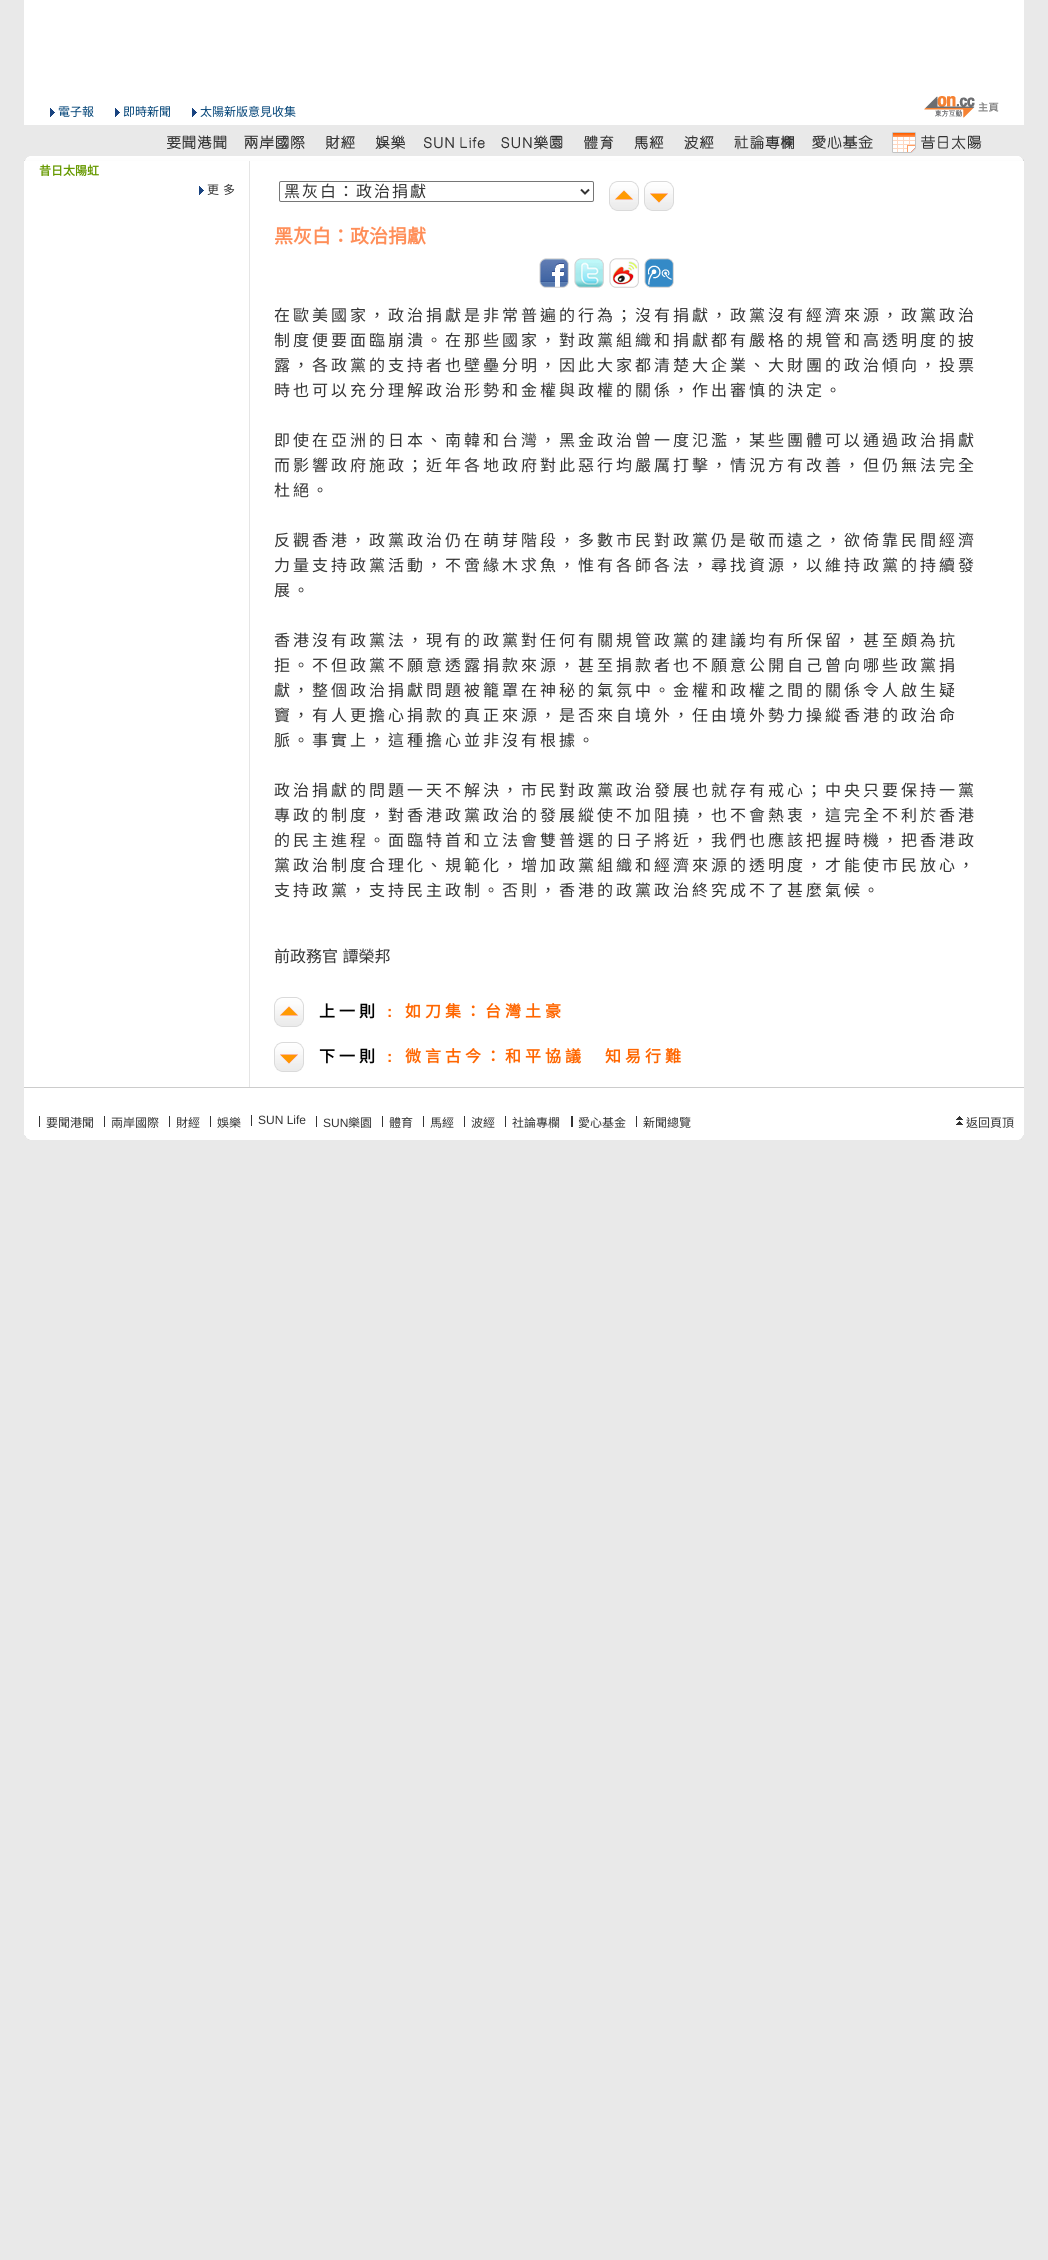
#include <cairo.h>
#include <math.h>
#include <stddef.h>

static cairo_t *c;
static void C(unsigned color){cairo_set_source_rgb(c, (color >> 16) / 255.0, (color >> 8 & 255) / 255.0, (color & 255) / 255.0);}
static void F(const char *family, double size, int italic, int bold){cairo_select_font_face(c, family, italic ? CAIRO_FONT_SLANT_ITALIC : CAIRO_FONT_SLANT_NORMAL,bold ? CAIRO_FONT_WEIGHT_BOLD : CAIRO_FONT_WEIGHT_NORMAL);cairo_set_font_size(c, size);}
static void T(double x, double y, const char *s){cairo_move_to(c, x, y);cairo_show_text(c, s);}
static void L(double x, double y, const char *s, double letter, double word){cairo_move_to(c, x, y);while (*s) {char ch[5] = {0};int n = 0;do ch[n++] = *s++; while ((*s & 0xC0) == 0x80);cairo_show_text(c, ch);cairo_rel_move_to(c, letter + word * (*ch == ' '), 0);}}
static void R(double x, double y, double w, double h){cairo_rectangle(c, x, y, w, h);cairo_fill(c);}
static void Q(double x, double y, double w, double h, double r){cairo_new_sub_path(c);cairo_arc(c, x + w - r, y + h - r, r, 0, M_PI / 2);cairo_arc(c, x + r, y + h - r, r, M_PI / 2, M_PI);cairo_arc(c, x + r, y + r, r, M_PI, 1.5 * M_PI);cairo_arc(c, x + w - r, y + r, r, 1.5 * M_PI, 2 * M_PI);cairo_close_path(c);}
static void I(const char *path, double x, double y, double w, double h){cairo_surface_t *image = cairo_image_surface_create_from_png(path);cairo_save(c);cairo_set_source_surface(c, image, x, y);cairo_rectangle(c, x, y, w, h);cairo_fill(c);cairo_restore(c);cairo_surface_destroy(image);}
int main(void) {
cairo_surface_t *surface = cairo_image_surface_create(CAIRO_FORMAT_RGB24, 1048, 2260);
c = cairo_create(surface);
cairo_font_options_t *options = cairo_font_options_create();
cairo_font_options_set_hint_metrics(options, CAIRO_HINT_METRICS_OFF);
cairo_font_options_set_hint_style(options, CAIRO_HINT_STYLE_NONE);
cairo_set_font_options(c, options);
cairo_set_miter_limit(c, 4);
C(0xe9e9e9);
cairo_paint(c);
C(0xffffff);
R(24,0,1000,125);
I("1.png",50,108,5,9);
F("Noto Sans CJK HK",12,0,0);
C(0x004276);
T(58,116,"電子報");
I("1.png",115,108,5,9);
T(123,116,"即時新聞");
I("1.png",192,108,5,9);
T(200,116,"太陽新版意見收集");
I("2.png",924,96,75,22);
I("3.png",167,135,60,15);
I("4.png",244,135,61,15);
I("5.png",326,135,29,15);
I("6.png",375,135,30,15);
I("7.png",424,137,61,12);
I("8.png",501,135,62,15);
I("9.png",584,135,30,15);
I("10.png",634,135,30,15);
I("11.png",684,135,30,15);
I("12.png",734,135,60,15);
I("13.png",812,135,61,14);
I("14.png",892,132,90,21);
I("15.png",24,156,960,5);
I("16.png",984,156,40,5);
C(0xffffff);
R(24,161,1000,926);
C(0xe5e5e5);
R(249,161,1,927);
C(0xcccccc);
R(24,1087,1000,1);
F("Noto Sans CJK HK",12,0,1);
C(0x669900);
T(39,175,"昔日太陽虹");
I("1.png",199,186,5,9);
F("Noto Sans CJK HK",12,0,0);
C(0x333333);
L(207,194,"更多",4,0);
Q(279.5,181.5,314,20,1.5);
C(0x767676);
cairo_set_line_width(c,1);
cairo_stroke(c);
cairo_new_path(c);
cairo_move_to(c,581,189.5);
cairo_line_to(c,585,193.5);
cairo_line_to(c,589,189.5);
C(0x333333);
cairo_set_line_width(c,2);
cairo_stroke(c);
F("Noto Sans CJK HK",16,0,0);
L(284,197,"黑灰白：政治捐獻",2,0);
I("17.png",609,181,30,30);
I("18.png",644,181,30,30);
F("Noto Sans CJK HK",19,0,1);
C(0xff8e58);
T(274,243,"黑灰白：政治捐獻");
I("19.png",539,258,30,30);
I("20.png",574,258,30,30);
I("21.png",609,258,30,30);
I("22.png",644,258,30,30);
F("Noto Sans CJK HK",16,0,0);
C(0x333333);
L(274,321,"在歐美國家，政治捐獻是非常普遍的行為；沒有捐獻，政黨沒有經濟來源，政黨政治",3,0);
L(274,346,"制度便要面臨崩潰。在那些國家，對政黨組織和捐獻都有嚴格的規管和高透明度的披",3,0);
L(274,371,"露，各政黨的支持者也壁壘分明，因此大家都清楚大企業、大財團的政治傾向，投票",3,0);
L(274,396,"時也可以充分理解政治形勢和金權與政權的關係，作出審慎的決定。",3,0);
L(274,446,"即使在亞洲的日本、南韓和台灣，黑金政治曾一度氾濫，某些團體可以通過政治捐獻",3,0);
L(274,471,"而影響政府施政；近年各地政府對此惡行均嚴厲打擊，情況方有改善，但仍無法完全",3,0);
L(274,496,"杜絕。",3,0);
L(274,546,"反觀香港，政黨政治仍在萌芽階段，多數市民對政黨仍是敬而遠之，欲倚靠民間經濟",3,0);
L(274,571,"力量支持政黨活動，不啻緣木求魚，惟有各師各法，尋找資源，以維持政黨的持續發",3,0);
L(274,596,"展。",3,0);
L(274,646,"香港沒有政黨法，現有的政黨對任何有關規管政黨的建議均有所保留，甚至頗為抗",3,0);
L(274,671,"拒。不但政黨不願意透露捐款來源，甚至捐款者也不願意公開自己曾向哪些政黨捐",3,0);
L(274,696,"獻，整個政治捐獻問題被籠罩在神秘的氣氛中。金權和政權之間的關係令人啟生疑",3,0);
L(274,721,"竇，有人更擔心捐款的真正來源，是否來自境外，任由境外勢力操縱香港的政治命",3,0);
L(274,746,"脈。事實上，這種擔心並非沒有根據。",3,0);
L(274,796,"政治捐獻的問題一天不解決，市民對政黨政治發展也就存有戒心；中央只要保持一黨",3,0);
L(274,821,"專政的制度，對香港政黨政治的發展縱使不加阻撓，也不會熱衷，這完全不利於香港",3,0);
L(274,846,"的民主進程。面臨特首和立法會雙普選的日子將近，我們也應該把握時機，把香港政",3,0);
L(274,871,"黨政治制度合理化、規範化，增加政黨組織和經濟來源的透明度，才能使市民放心，",3,0);
L(274,896,"支持政黨，支持民主政制。否則，香港的政黨政治終究成不了甚麼氣候。",3,0);
L(274,962,"前政務官 譚榮邦",0,1);
I("17.png",274,997,30,30);
F("Noto Sans CJK HK",16,0,1);
C(0x000000);
L(319,1017,"上一則",4,0);
F("Liberation Sans",16,0,1);
C(0xff6600);
L(387,1017,":",4,0);
F("Noto Sans CJK HK",16,0,1);
L(405,1017,"如刀集：台灣土豪",4,0);
I("18.png",274,1042,30,30);
C(0x000000);
L(319,1062,"下一則",4,0);
F("Liberation Sans",16,0,1);
C(0xff6600);
L(387,1062,":",4,0);
F("Noto Sans CJK HK",16,0,1);
L(405,1062,"微言古今：和平協議　知易行難",4,0);
C(0xffffff);
R(24,1088,1000,47);
C(0x333333);
R(39,1116,1,11);
F("Noto Sans CJK HK",12,0,0);
T(46,1127,"要聞港聞");
R(104,1116,1,11);
T(111,1127,"兩岸國際");
R(169,1116,1,11);
T(176,1127,"財經");
R(210,1116,1,11);
T(217,1127,"娛樂");
R(251,1115,1,11);
F("Liberation Sans",12,0,0);
T(258,1124,"SUN Life");
R(316,1116,1,11);
T(323,1127,"SUN");
F("Noto Sans CJK HK",12,0,0);
T(348,1127,"樂園");
R(382,1116,1,11);
T(389,1127,"體育");
R(423,1116,1,11);
T(430,1127,"馬經");
R(464,1116,1,11);
T(471,1127,"波經");
R(505,1116,1,11);
T(512,1127,"社論專欄");
R(571,1116,2,11);
T(578,1127,"愛心基金");
R(636,1116,1,11);
T(643,1127,"新聞總覽");
I("23.png",956,1116,7,9);
T(966,1127,"返回頁頂");
I("24.png",25,1135,959,5);
I("25.png",984,1135,39,5);
cairo_surface_write_to_png(surface, "o.png");
cairo_font_options_destroy(options);
cairo_destroy(c);
cairo_surface_destroy(surface);
return 0;
}
